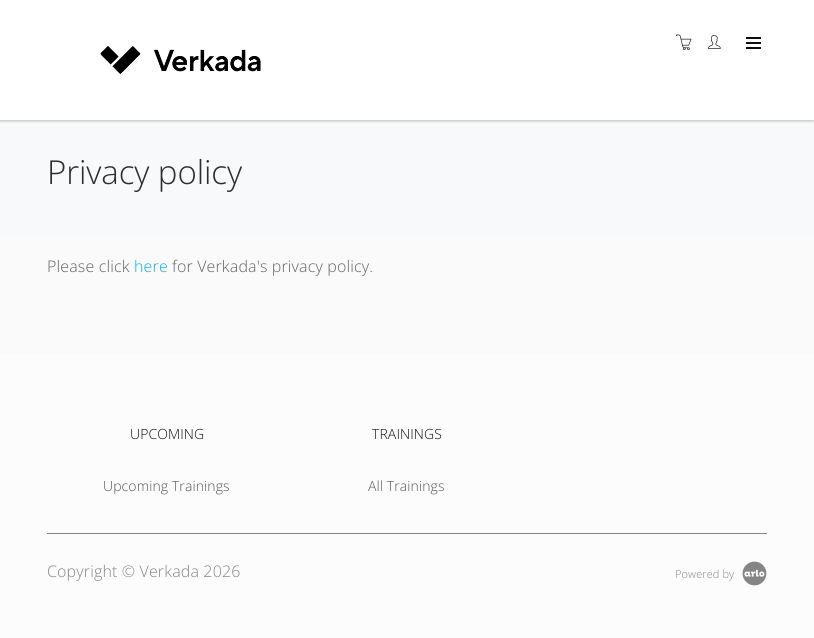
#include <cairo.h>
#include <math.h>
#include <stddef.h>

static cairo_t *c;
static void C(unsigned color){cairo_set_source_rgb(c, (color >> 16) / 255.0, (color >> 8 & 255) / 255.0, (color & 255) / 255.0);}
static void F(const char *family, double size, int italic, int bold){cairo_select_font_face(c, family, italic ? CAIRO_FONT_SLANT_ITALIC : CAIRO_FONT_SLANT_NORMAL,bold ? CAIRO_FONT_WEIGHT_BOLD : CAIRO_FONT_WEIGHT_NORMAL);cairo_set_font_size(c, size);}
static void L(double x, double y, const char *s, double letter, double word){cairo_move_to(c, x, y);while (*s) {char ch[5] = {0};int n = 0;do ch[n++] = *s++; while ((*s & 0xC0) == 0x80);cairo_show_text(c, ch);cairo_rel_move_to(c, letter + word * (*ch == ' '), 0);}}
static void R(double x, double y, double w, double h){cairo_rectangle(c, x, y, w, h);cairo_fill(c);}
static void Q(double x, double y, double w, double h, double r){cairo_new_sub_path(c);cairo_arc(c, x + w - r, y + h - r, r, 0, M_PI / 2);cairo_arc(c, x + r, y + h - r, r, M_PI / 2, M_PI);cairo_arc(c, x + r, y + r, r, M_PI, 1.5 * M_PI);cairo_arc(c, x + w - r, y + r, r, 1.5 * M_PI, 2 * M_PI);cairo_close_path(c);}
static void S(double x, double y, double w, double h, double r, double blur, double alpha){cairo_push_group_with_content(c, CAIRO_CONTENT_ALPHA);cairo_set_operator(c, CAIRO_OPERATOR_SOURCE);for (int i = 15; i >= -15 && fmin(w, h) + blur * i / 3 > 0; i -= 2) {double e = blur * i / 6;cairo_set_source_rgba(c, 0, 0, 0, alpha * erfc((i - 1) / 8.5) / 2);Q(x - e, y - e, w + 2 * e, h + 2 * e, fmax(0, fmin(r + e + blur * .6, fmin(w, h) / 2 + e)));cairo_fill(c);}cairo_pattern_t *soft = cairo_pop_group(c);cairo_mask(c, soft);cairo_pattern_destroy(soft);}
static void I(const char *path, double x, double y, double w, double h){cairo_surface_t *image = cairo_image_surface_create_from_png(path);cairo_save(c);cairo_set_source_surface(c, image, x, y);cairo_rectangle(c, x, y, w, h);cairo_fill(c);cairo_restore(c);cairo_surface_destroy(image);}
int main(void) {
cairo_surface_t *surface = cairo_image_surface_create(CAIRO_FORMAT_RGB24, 814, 638);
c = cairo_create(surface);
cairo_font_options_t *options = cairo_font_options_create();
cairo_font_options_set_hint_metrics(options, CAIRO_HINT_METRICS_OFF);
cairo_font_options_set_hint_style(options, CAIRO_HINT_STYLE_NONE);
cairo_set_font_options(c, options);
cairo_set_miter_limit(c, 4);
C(0xffffff);
cairo_paint(c);
C(0xf7f9fb);
R(0,120,814,114);
cairo_save(c);
cairo_rectangle(c,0,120,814,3);
cairo_clip(c);
C(0x000000);
S(0,1,814,120,0,1.5,.25);
cairo_restore(c);
I("1.png",676,34,16,16);
I("2.png",707,35,14,14);
C(0x0e0e0e);
R(746,37,15,2);
R(746,42,15,2);
R(746,47,15,2);
I("3.png",100,46,161,28);
F("Open Sans Light",33,0,0);
C(0x2c2c2c);
L(47,184,"Privacy policy",-.1,0);
C(0xfafafa);
R(0,234,814,120);
F("Open Sans Light",16,0,0);
C(0x626262);
L(47,272,"Please click",.15,0);
C(0x04aef8);
L(134,272,"here",.15,0);
C(0x626262);
L(172,272,"for Verkada's privacy policy.",.15,0);
C(0xfcfcfc);
R(0,354,814,284);
F("Open Sans Light",14,0,0);
C(0x0e0e0e);
L(130,439,"UPCOMING",.1,0);
C(0x555555);
L(103,491,"Upcoming Trainings",.1,0);
C(0x0e0e0e);
L(372,439,"TRAININGS",.1,0);
C(0x555555);
L(368,491,"All Trainings",.1,0);
C(0x858585);
R(47,533,720,1);
F("Open Sans Light",16,0,0);
L(47,577,"Copyright © Verkada 2026",.15,0);
F("Open Sans Light",11,0,0);
L(675,578,"Powered by",.1,0);
I("4.png",742,561,25,25);
cairo_surface_write_to_png(surface, "o.png");
cairo_font_options_destroy(options);
cairo_destroy(c);
cairo_surface_destroy(surface);
return 0;
}
